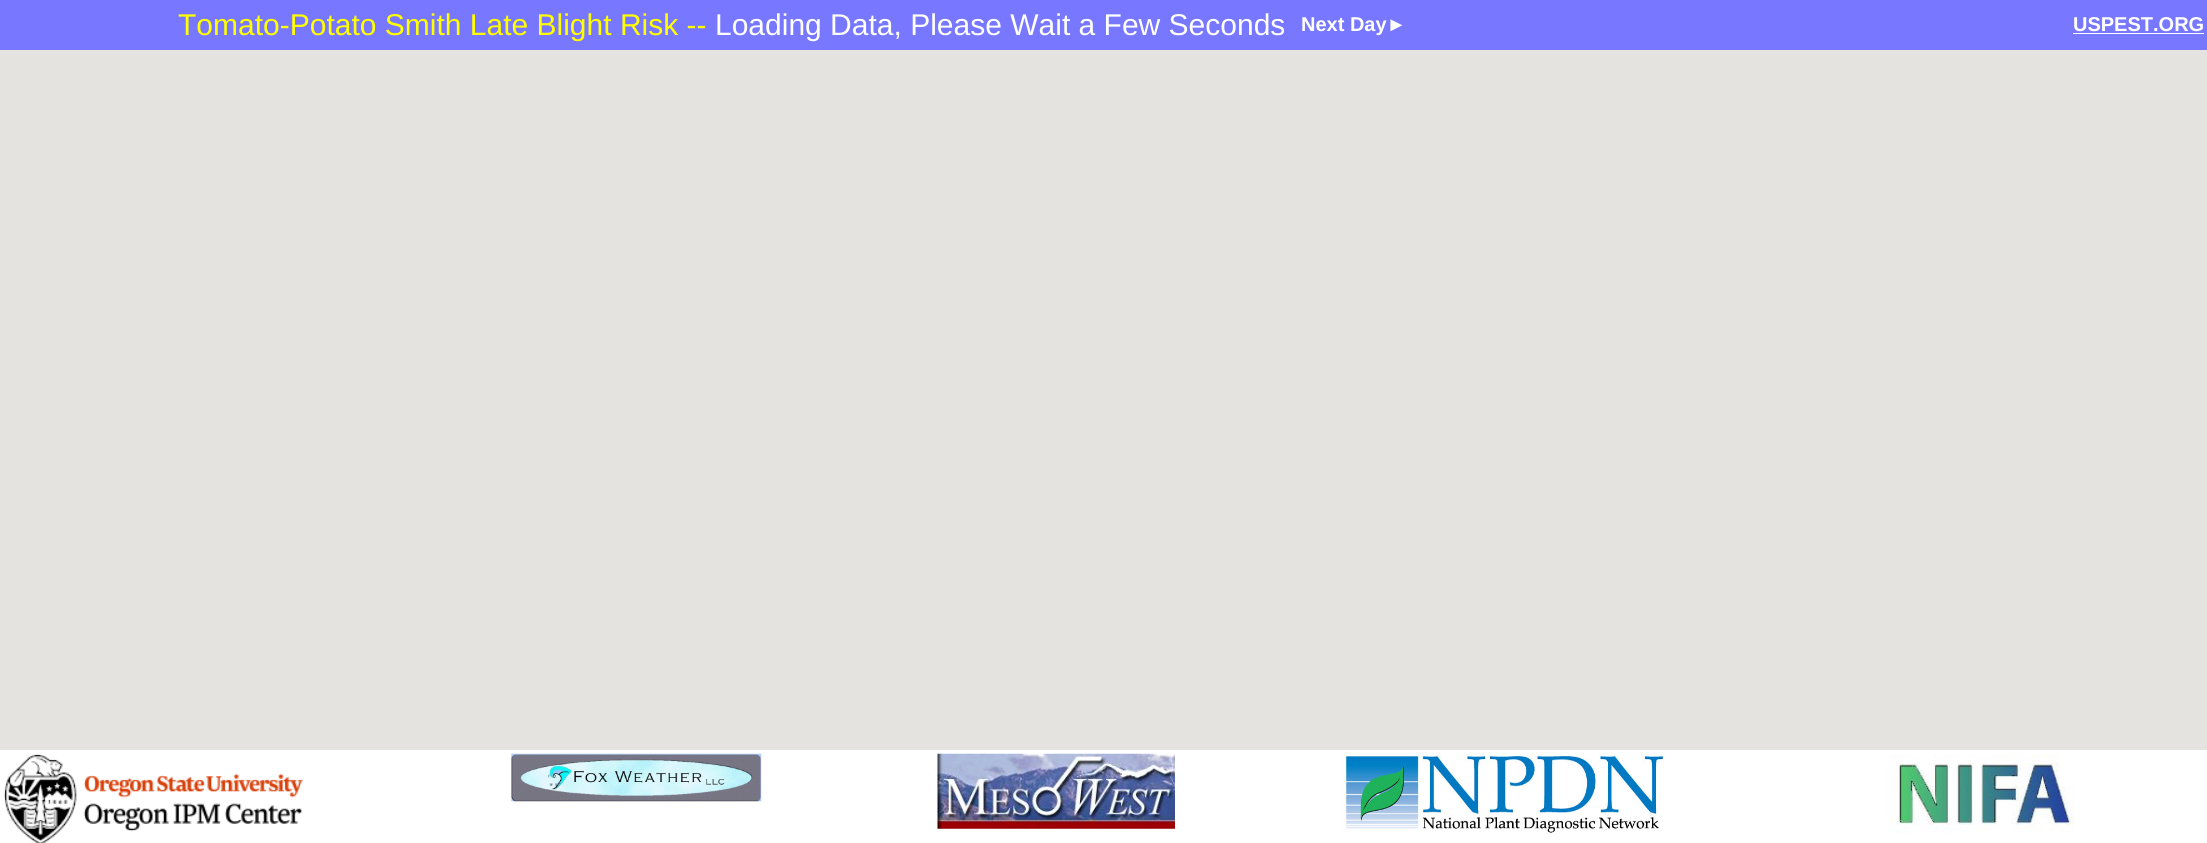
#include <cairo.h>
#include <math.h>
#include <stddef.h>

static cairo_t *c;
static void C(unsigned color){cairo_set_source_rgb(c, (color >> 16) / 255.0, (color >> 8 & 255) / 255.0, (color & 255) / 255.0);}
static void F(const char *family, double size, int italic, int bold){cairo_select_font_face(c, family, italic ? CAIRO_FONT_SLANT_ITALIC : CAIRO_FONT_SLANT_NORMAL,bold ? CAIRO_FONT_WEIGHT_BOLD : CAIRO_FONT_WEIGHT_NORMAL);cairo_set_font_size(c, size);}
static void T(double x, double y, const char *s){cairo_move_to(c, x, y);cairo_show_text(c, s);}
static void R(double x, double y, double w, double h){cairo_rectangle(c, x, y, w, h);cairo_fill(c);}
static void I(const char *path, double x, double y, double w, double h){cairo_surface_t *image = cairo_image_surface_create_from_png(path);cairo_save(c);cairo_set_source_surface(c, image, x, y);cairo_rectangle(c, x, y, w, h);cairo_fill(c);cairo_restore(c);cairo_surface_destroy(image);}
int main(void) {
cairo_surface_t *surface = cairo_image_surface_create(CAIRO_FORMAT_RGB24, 2207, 843);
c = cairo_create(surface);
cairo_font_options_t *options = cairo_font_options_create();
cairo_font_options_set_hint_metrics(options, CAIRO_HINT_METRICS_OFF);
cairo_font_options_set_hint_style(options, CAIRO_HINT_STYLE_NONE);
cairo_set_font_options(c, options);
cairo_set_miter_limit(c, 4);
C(0xffffff);
cairo_paint(c);
C(0x7777ff);
R(0,0,2207,50);
F("Liberation Sans",30,0,0);
C(0xffff00);
T(178,35,"Tomato-Potato Smith Late Blight Risk --");
C(0xffffff);
T(715,35,"Loading Data, Please Wait a Few Seconds");
F("Liberation Sans",20,0,1);
T(1301,31,"Next Day►");
T(2073,31,"USPEST.ORG");
R(2073,33,131,1);
C(0xe5e3df);
R(0,50,2207,700);
I("1.png",3,754,300,89);
I("2.png",511,753,251,49);
I("3.png",937,753,238,76);
I("4.png",1342,753,322,80);
I("5.png",1887,754,188,79);
cairo_surface_write_to_png(surface, "o.png");
cairo_font_options_destroy(options);
cairo_destroy(c);
cairo_surface_destroy(surface);
return 0;
}
